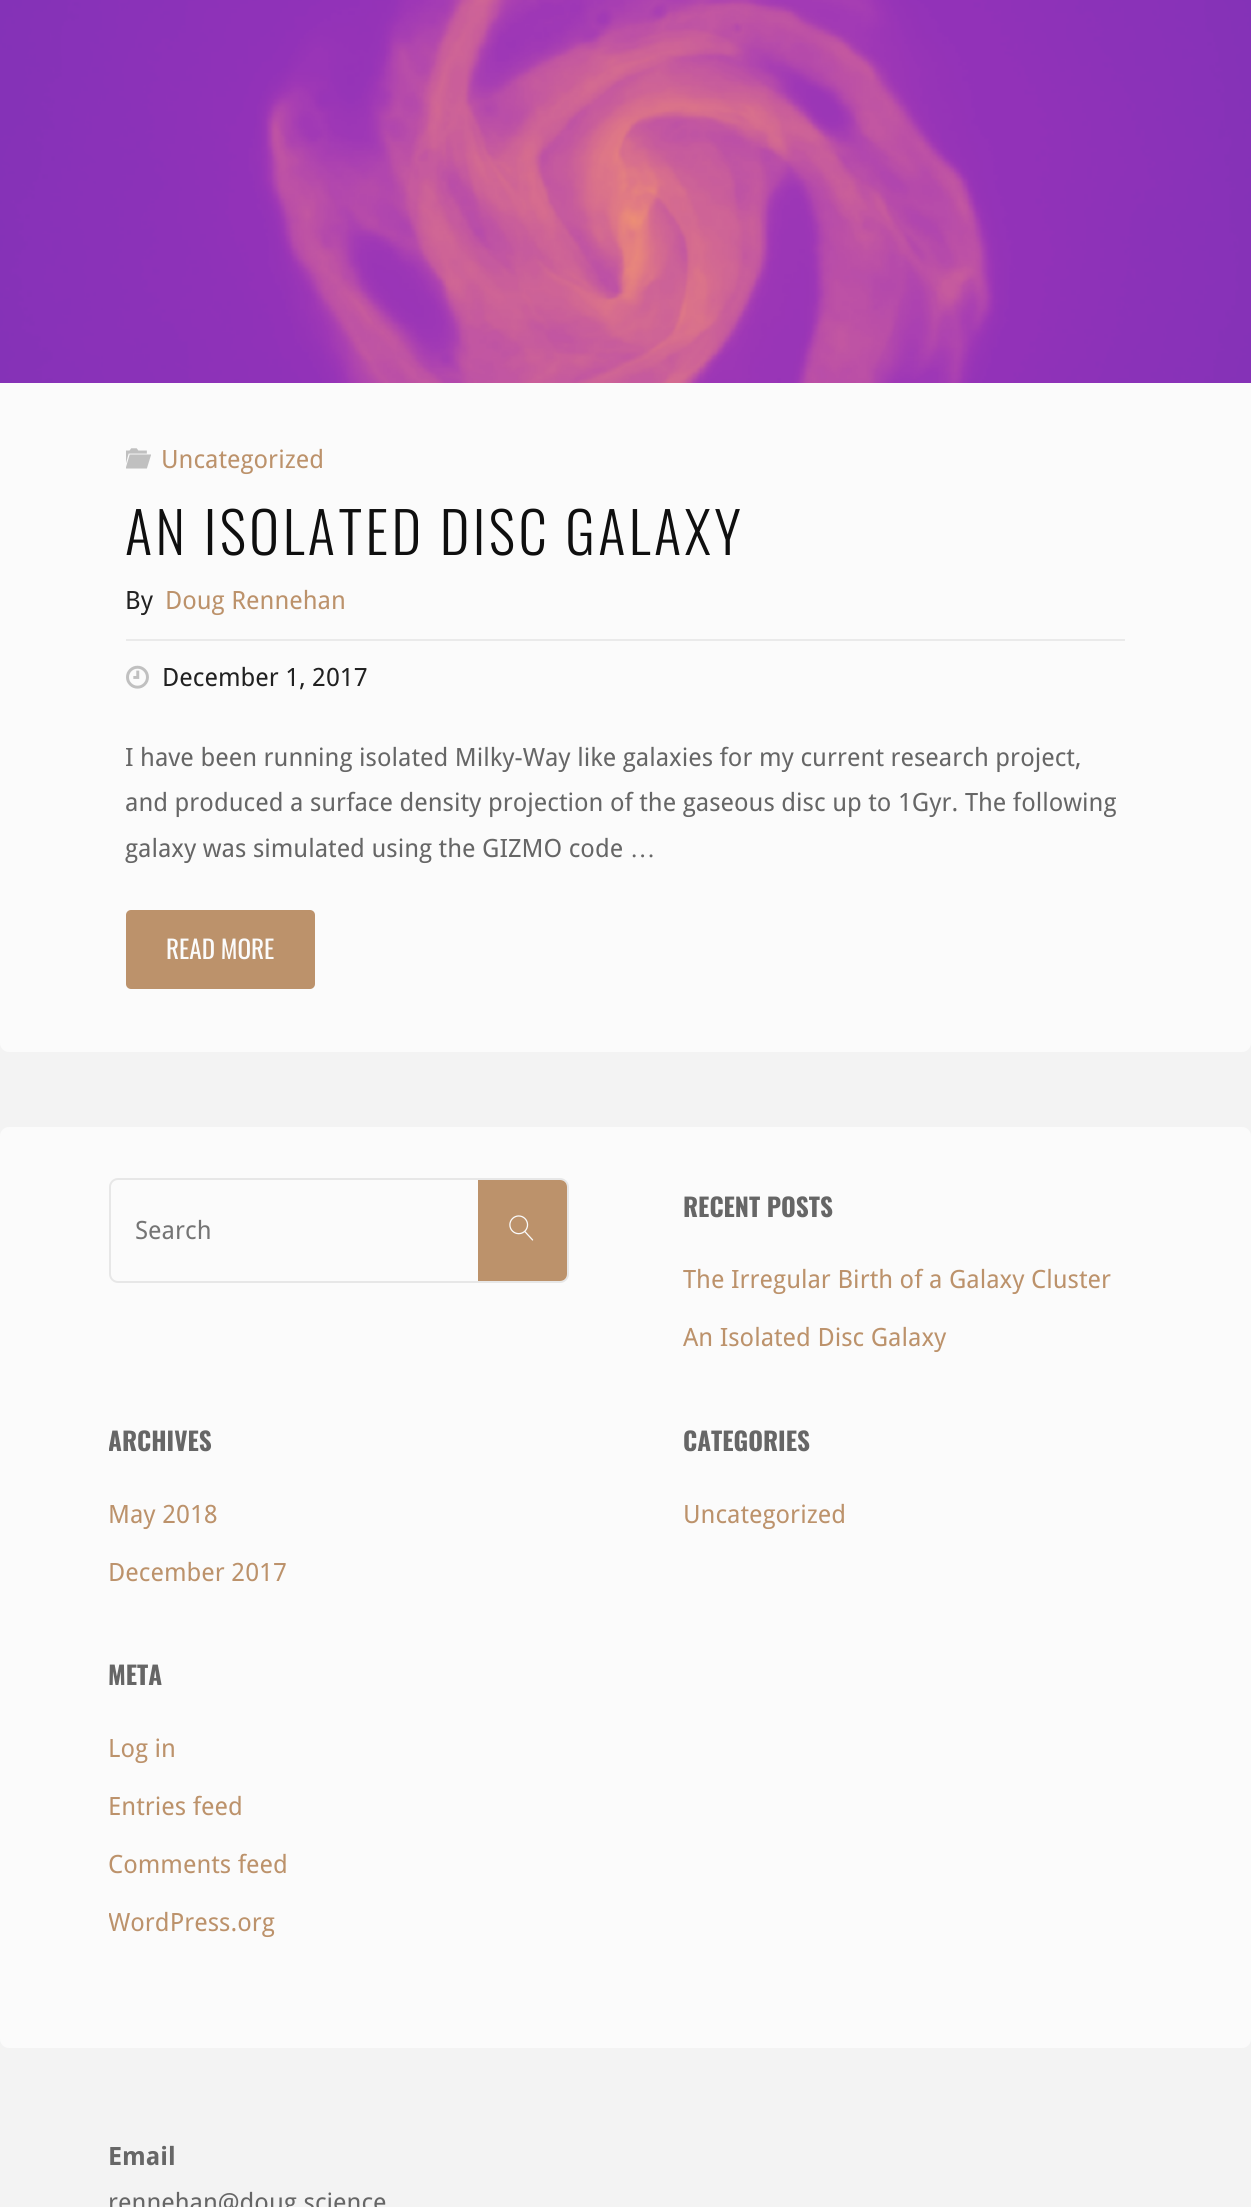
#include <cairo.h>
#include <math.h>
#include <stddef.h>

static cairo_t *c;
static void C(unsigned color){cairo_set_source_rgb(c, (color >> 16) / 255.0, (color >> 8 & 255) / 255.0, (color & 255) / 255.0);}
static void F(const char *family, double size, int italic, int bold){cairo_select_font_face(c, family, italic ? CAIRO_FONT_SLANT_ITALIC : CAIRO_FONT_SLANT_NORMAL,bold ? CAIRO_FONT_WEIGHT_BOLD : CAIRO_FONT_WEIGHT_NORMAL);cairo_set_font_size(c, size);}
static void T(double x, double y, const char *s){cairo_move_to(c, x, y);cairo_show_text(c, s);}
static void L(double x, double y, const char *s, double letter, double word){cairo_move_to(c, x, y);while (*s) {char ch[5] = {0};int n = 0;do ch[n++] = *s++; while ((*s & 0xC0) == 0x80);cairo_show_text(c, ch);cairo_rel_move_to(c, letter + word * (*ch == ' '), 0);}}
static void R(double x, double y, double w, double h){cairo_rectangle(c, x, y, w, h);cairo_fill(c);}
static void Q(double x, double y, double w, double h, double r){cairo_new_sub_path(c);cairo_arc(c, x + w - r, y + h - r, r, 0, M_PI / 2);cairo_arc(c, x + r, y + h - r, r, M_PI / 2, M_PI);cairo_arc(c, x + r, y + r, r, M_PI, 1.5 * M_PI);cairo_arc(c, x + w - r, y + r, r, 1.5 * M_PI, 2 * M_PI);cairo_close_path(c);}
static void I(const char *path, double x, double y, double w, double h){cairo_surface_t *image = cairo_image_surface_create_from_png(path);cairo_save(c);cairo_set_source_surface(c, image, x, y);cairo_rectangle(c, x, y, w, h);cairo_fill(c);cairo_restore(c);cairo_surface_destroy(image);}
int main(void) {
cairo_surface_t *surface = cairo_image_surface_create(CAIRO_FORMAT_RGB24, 1251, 2207);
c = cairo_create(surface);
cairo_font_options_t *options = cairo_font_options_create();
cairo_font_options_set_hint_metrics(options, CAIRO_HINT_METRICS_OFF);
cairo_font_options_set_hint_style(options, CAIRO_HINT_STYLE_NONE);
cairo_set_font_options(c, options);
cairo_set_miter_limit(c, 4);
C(0xf3f3f3);
cairo_paint(c);
C(0xfbfbfb);
Q(0,-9,1251,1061,9);
cairo_fill(c);
I("1.png",0,0,1251,383);
I("2.png",126,448,25,21);
F("Droid Sans",25.2,0,0);
C(0xbc926b);
T(161,468,"Uncategorized");
F("Oswald Light",56.75,0,0);
C(0x0f0f0f);
L(125,555,"AN ISOLATED DISC GALAXY",3.5,0);
C(0xeaeaea);
R(126,639,999,2);
F("Droid Sans",25.2,0,0);
C(0x212121);
T(125,609,"By");
C(0xbc926b);
T(165,609,"Doug Rennehan");
I("3.png",126,665,23,24);
C(0x212121);
T(162,686,"December 1, 2017");
C(0x666666);
T(125,766,"I have been running isolated Milky-Way like galaxies for my current research project,");
T(125,811,"and produced a surface density projection of the gaseous disc up to 1Gyr. The following");
T(125,857,"galaxy was simulated using the GIZMO code");
F("Liberation Serif",25.2,0,0);
T(630,857,"…");
C(0xbc926b);
Q(126,910,189,79,5);
cairo_fill(c);
F("Oswald",25.2,0,0);
C(0xfbfbfb);
T(166,959,"READ MORE");
Q(0,1127,1251,921,9);
cairo_fill(c);
Q(110,1179,458,103,8);
C(0xe7e7e7);
cairo_stroke(c);
C(0xbc926b);
cairo_new_path(c);
cairo_move_to(c,478,1180);
cairo_line_to(c,560,1180);
cairo_curve_to(c,564,1180,567,1183,567,1187);
cairo_line_to(c,567,1274);
cairo_curve_to(c,567,1278,564,1281,560,1281);
cairo_line_to(c,478,1281);
cairo_close_path(c);
cairo_fill(c);
F("Droid Sans",25.2,0,0);
C(0x757575);
T(135,1239,"Search");
I("4.png",509,1215,25,26);
F("Oswald",25.2,0,1);
C(0x666666);
T(683,1217,"RECENT POSTS");
F("Droid Sans",25.2,0,0);
C(0xbc926b);
T(683,1288,"The Irregular Birth of a Galaxy Cluster");
T(683,1346,"An Isolated Disc Galaxy");
cairo_save(c);
cairo_rectangle(c,109,1412,460,196);
cairo_clip(c);
F("Oswald",25.2,0,1);
C(0x666666);
T(108,1451,"ARCHIVES");
cairo_restore(c);
T(108,1523,"May 2018");
T(108,1581,"December 2017");
F("Oswald",25.2,0,1);
C(0x666666);
T(683,1451,"CATEGORIES");
F("Droid Sans",25.2,0,0);
C(0xbc926b);
T(683,1523,"Uncategorized");
F("Oswald",25.2,0,1);
C(0x666666);
T(108,1685,"META");
F("Droid Sans",25.2,0,0);
C(0xbc926b);
T(108,1757,"Log in");
T(108,1815,"Entries feed");
T(108,1873,"Comments feed");
cairo_save(c);
cairo_rectangle(c,109,1647,460,311);
cairo_clip(c);
T(108,1931,"WordPress.org");
cairo_restore(c);
F("Droid Sans",25.2,0,1);
C(0x666666);
T(108,2165,"Email");
F("Droid Sans",25.2,0,0);
T(108,2211,"rennehan@doug.science");
cairo_surface_write_to_png(surface, "o.png");
cairo_font_options_destroy(options);
cairo_destroy(c);
cairo_surface_destroy(surface);
return 0;
}
